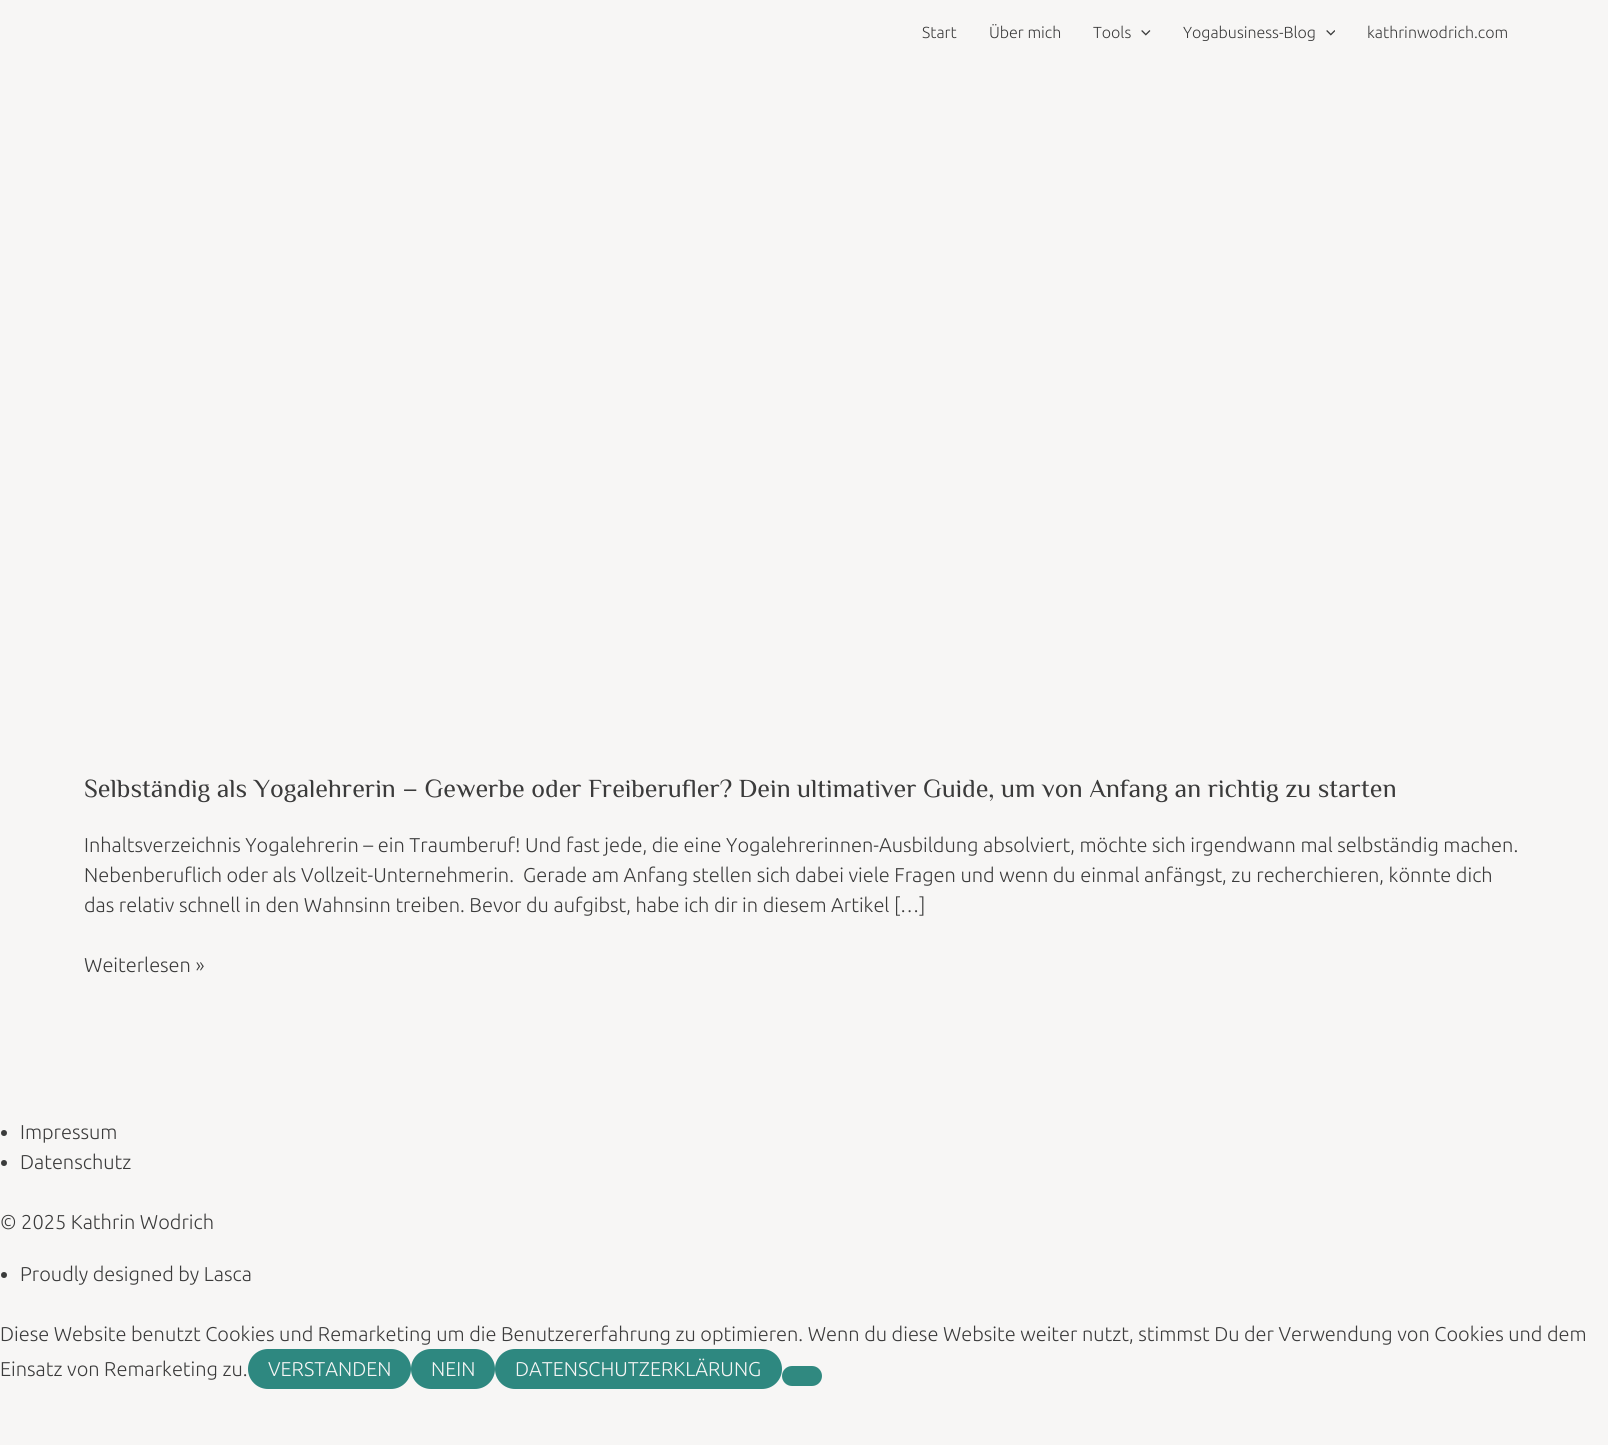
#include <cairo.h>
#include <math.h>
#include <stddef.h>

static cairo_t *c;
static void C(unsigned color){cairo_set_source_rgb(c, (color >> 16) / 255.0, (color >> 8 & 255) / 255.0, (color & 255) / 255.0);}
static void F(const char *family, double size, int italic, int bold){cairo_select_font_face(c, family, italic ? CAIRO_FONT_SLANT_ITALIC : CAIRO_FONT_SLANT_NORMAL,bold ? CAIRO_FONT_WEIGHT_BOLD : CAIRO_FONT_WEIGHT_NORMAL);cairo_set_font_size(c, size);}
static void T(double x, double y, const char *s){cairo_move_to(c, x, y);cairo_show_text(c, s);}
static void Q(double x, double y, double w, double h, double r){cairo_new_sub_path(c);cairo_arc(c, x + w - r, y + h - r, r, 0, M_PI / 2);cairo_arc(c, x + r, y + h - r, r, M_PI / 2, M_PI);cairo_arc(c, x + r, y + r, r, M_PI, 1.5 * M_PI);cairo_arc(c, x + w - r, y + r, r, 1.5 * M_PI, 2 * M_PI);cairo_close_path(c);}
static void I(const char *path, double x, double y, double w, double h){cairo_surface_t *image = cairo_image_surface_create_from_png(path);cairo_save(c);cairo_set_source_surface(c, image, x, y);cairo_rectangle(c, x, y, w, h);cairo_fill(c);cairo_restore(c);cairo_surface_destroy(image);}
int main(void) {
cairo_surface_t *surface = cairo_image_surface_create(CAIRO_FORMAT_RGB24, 1608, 1445);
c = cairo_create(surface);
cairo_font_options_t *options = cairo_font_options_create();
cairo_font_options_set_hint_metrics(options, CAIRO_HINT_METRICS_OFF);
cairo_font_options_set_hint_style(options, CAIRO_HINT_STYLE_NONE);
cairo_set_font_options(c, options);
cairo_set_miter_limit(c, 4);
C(0xf7f6f5);
cairo_paint(c);
F("Ubuntu Light",16,0,0);
C(0x3b3b3b);
T(922,38,"Start");
T(989,38,"Über mich");
T(1093,38,"Tools");
I("1.png",1141,30,10,6);
T(1183,38,"Yogabusiness-Blog");
I("2.png",1326,30,9,6);
T(1367,38,"kathrinwodrich.com");
F("Philosopher",26,0,0);
T(84,797,"Selbständig als Yogalehrerin – Gewerbe oder Freiberufler? Dein ultimativer Guide, um von Anfang an richtig zu starten");
F("Ubuntu Light",20,0,0);
T(84,852,"Inhaltsverzeichnis Yogalehrerin – ein Traumberuf! Und fast jede, die eine Yogalehrerinnen-Ausbildung absolviert, möchte sich irgendwann mal selbständig machen.");
T(84,882,"Nebenberuflich oder als Vollzeit-Unternehmerin.  Gerade am Anfang stellen sich dabei viele Fragen und wenn du einmal anfängst, zu recherchieren, könnte dich");
T(84,912,"das relativ schnell in den Wahnsinn treiben. Bevor du aufgibst, habe ich dir in diesem Artikel […]");
T(84,972,"Weiterlesen »");
C(0x3a3b3b);
cairo_new_path(c);
cairo_arc(c,4,1133,3,0,2 * M_PI);
cairo_fill(c);
C(0x3b3b3b);
T(20,1139,"Impressum");
C(0x3a3b3b);
cairo_new_path(c);
cairo_arc(c,4,1163,3,0,2 * M_PI);
cairo_fill(c);
C(0x3b3b3b);
T(20,1169,"Datenschutz");
T(0,1229,"© 2025 Kathrin Wodrich");
C(0x3a3b3b);
cairo_new_path(c);
cairo_arc(c,4,1275,3,0,2 * M_PI);
cairo_fill(c);
C(0x3b3b3b);
T(20,1281,"Proudly designed by Lasca");
T(0,1341,"Diese Website benutzt Cookies und Remarketing um die Benutzererfahrung zu optimieren. Wenn du diese Website weiter nutzt, stimmst Du der Verwendung von Cookies und dem");
T(0,1376,"Einsatz von Remarketing zu.");
C(0x2e8880);
Q(248,1349,163,40,20);
cairo_fill(c);
C(0xf7f6f5);
T(268,1376,"VERSTANDEN");
C(0x2e8880);
Q(411,1349,84,40,20);
cairo_fill(c);
C(0xf7f6f5);
T(431,1376,"NEIN");
C(0x2e8880);
Q(495,1349,287,40,20);
cairo_fill(c);
C(0xf7f6f5);
T(515,1376,"DATENSCHUTZERKLÄRUNG");
C(0x308980);
Q(782,1366,40,20,10);
cairo_fill(c);
cairo_surface_write_to_png(surface, "o.png");
cairo_font_options_destroy(options);
cairo_destroy(c);
cairo_surface_destroy(surface);
return 0;
}
